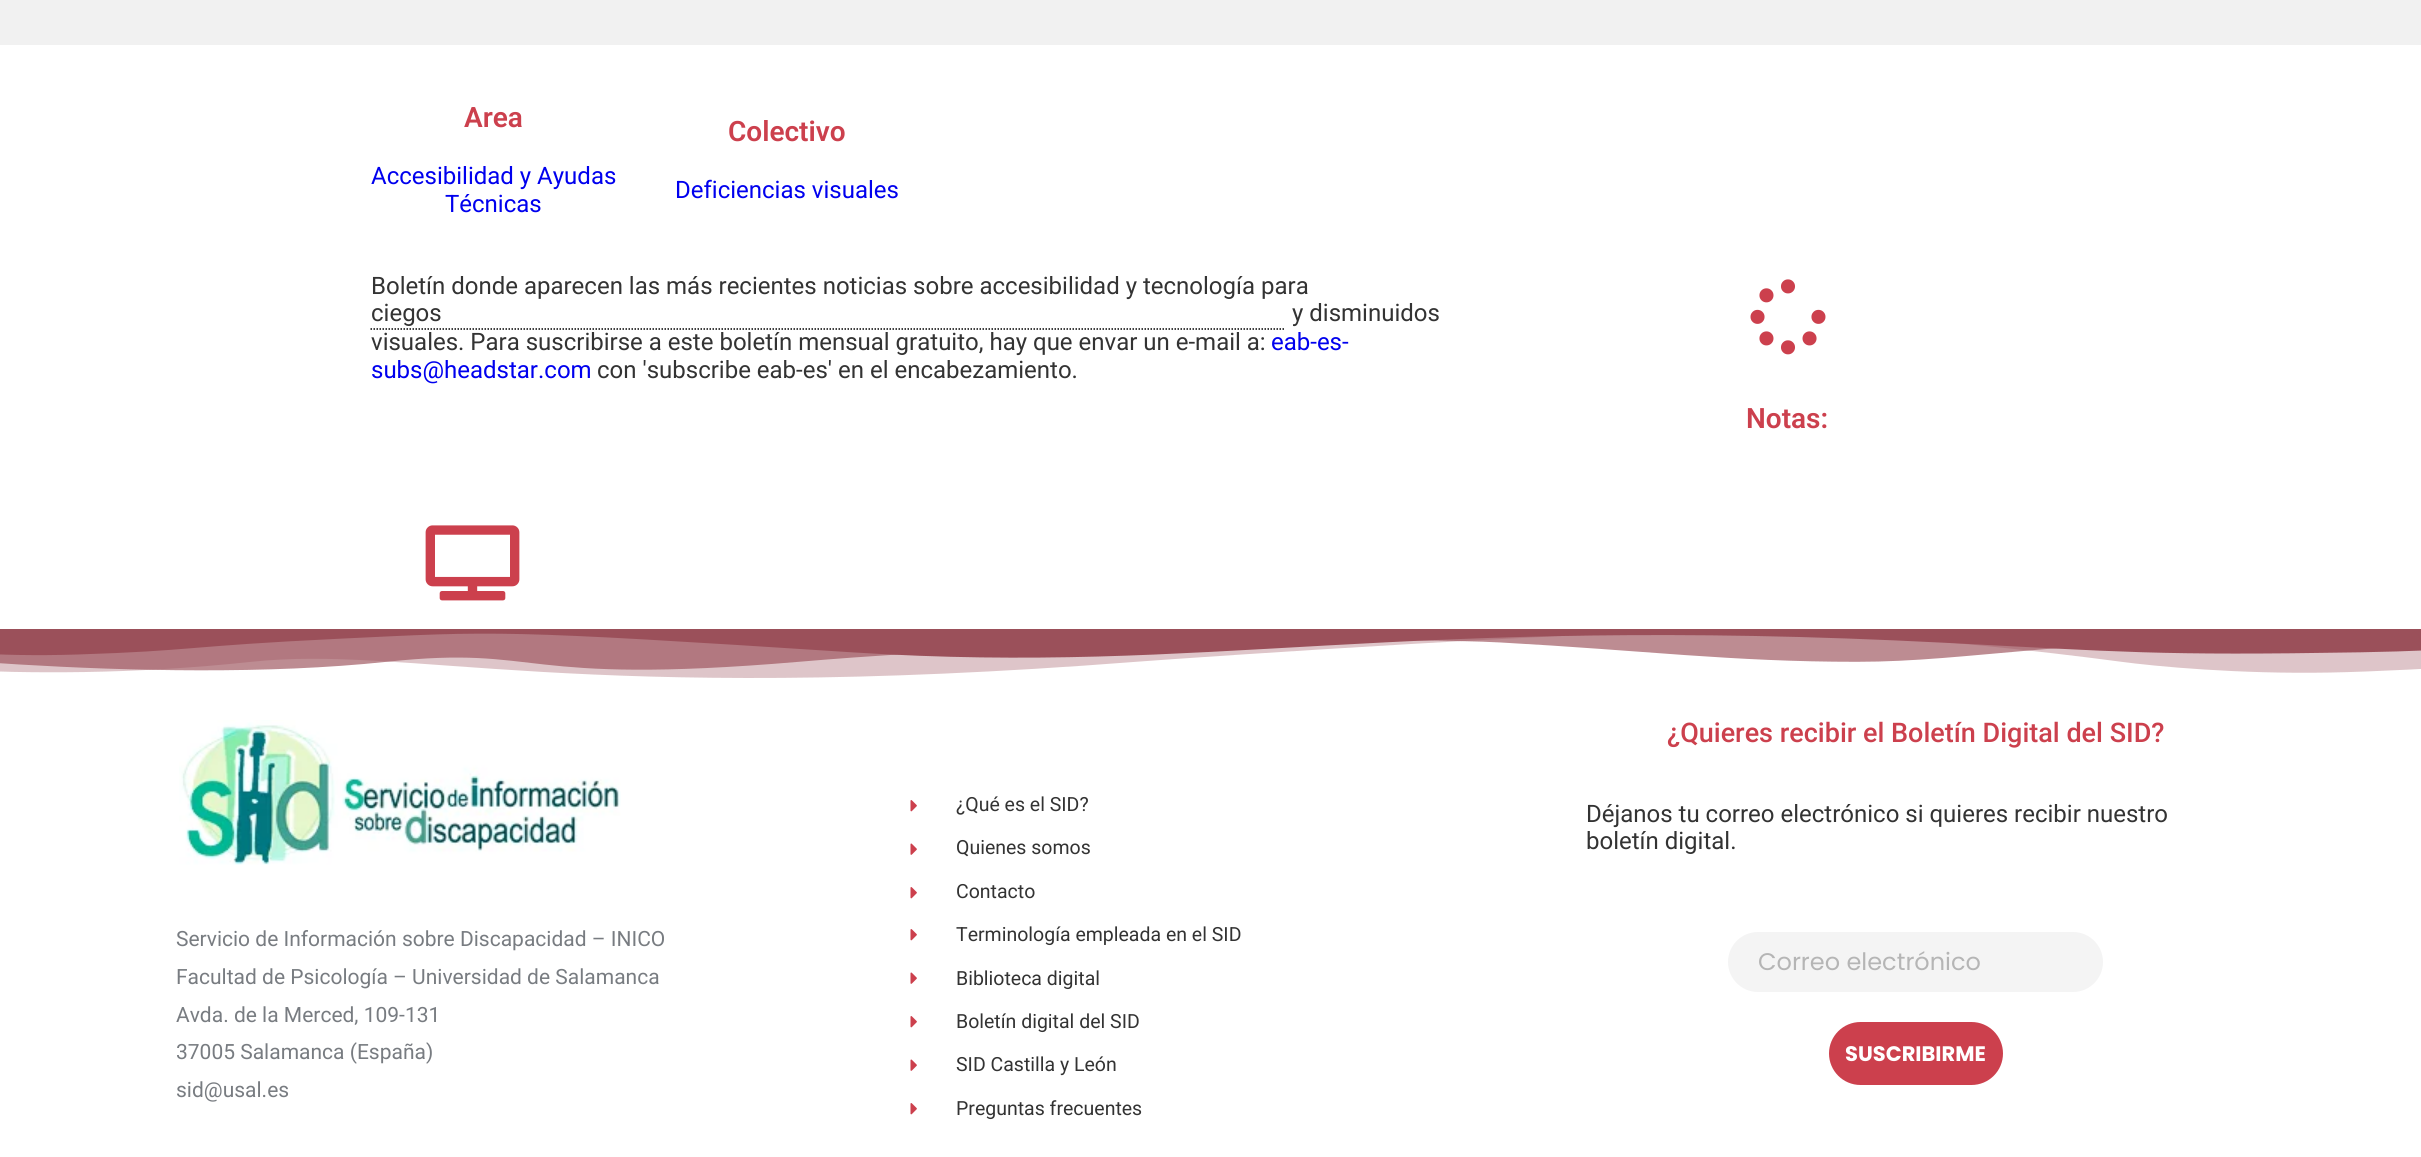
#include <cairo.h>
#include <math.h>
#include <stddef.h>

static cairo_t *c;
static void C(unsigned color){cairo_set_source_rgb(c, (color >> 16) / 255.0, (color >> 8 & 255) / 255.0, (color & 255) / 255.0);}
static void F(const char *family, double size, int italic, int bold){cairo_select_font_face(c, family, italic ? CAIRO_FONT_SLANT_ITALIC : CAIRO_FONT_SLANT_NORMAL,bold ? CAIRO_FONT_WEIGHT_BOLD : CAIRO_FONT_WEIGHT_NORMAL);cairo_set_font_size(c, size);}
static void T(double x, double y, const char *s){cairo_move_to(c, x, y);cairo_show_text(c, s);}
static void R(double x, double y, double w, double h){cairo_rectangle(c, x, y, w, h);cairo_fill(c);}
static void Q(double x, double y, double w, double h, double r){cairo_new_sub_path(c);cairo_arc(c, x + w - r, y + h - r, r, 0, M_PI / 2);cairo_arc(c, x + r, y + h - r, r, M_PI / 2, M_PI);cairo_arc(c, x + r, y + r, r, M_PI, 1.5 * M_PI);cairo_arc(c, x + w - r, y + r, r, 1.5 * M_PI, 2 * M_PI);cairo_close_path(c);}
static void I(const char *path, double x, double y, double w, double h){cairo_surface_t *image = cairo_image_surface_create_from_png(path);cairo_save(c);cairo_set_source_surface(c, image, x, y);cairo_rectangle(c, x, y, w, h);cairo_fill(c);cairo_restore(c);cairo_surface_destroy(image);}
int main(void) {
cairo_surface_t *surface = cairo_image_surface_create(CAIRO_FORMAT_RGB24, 2421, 1157);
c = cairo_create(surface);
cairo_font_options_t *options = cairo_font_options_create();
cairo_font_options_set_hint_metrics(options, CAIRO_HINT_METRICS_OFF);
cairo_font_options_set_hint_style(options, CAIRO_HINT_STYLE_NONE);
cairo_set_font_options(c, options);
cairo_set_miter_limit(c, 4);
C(0xffffff);
cairo_paint(c);
C(0xf1f1f1);
R(0,0,2421,45);
F("Roboto SemiBold",28,0,0);
C(0xcc404d);
T(464,127,"Area");
F("Roboto",24,0,0);
C(0x0000ee);
T(371,184,"Accesibilidad y Ayudas");
T(445,212,"Técnicas");
F("Roboto SemiBold",28,0,0);
C(0xcc404d);
T(728,141,"Colectivo");
F("Roboto",24,0,0);
C(0x0000ee);
T(675,198,"Deficiencias visuales");
C(0x333333);
T(371,294,"Boletín donde aparecen las más recientes noticias sobre accesibilidad y tecnología para");
cairo_new_path(c);
cairo_move_to(c,370.5,329);
cairo_line_to(c,1285.5,329);
C(0x000000);
cairo_set_line_width(c,1.5);
cairo_set_dash(c,(double[]){1.5,1.5},2,0);
cairo_stroke(c);
C(0x333333);
T(371,321,"ciegos");
T(1292,321,"y disminuidos");
T(371,350,"visuales. Para suscribirse a este boletín mensual gratuito, hay que envar un e-mail a:");
C(0x0000ee);
T(1271,350,"eab-es-");
T(371,378,"subs@headstar.com");
C(0x333333);
T(597,378,"con 'subscribe eab-es' en el encabezamiento.");
I("1.png",1750,279,76,76);
F("Roboto SemiBold",28,0,0);
C(0xcc404d);
T(1746,428,"Notas:");
I("2.png",425,525,95,76);
I("3.png",0,629,2421,49);
I("4.png",179,720,442,145);
F("Roboto",21,0,0);
C(0x787c81);
T(176,946,"Servicio de Información sobre Discapacidad – INICO");
T(176,984,"Facultad de Psicología – Universidad de Salamanca");
T(176,1022,"Avda. de la Merced, 109-131");
T(176,1059,"37005 Salamanca (España)");
T(176,1097,"sid@usal.es");
I("5.png",910,800,7,12);
F("Roboto",19.5,0,0);
C(0x333333);
T(956,811,"¿Qué es el SID?");
I("6.png",910,843,7,12);
T(956,854,"Quienes somos");
I("5.png",910,887,7,12);
T(956,898,"Contacto");
I("5.png",910,929,7,12);
T(956,941,"Terminología empleada en el SID");
I("6.png",910,972,7,12);
T(956,985,"Biblioteca digital");
I("5.png",910,1016,7,12);
T(956,1028,"Boletín digital del SID");
I("6.png",910,1059,7,12);
T(956,1071,"SID Castilla y León");
I("5.png",910,1103,7,12);
T(956,1115,"Preguntas frecuentes");
F("Roboto Medium",27,0,0);
C(0xcc404d);
T(1667,742,"¿Quieres recibir el Boletín Digital del SID?");
F("Roboto",24,0,0);
C(0x333333);
T(1586,822,"Déjanos tu correo electrónico si quieres recibir nuestro");
T(1586,849,"boletín digital.");
C(0xf4f4f4);
Q(1728,932,375,60,30);
cairo_fill(c);
F("Poppins",24,0,0);
C(0xb5b5b5);
T(1758,970,"Correo electrónico");
C(0xcc404d);
Q(1829,1022,174,63,31.5);
cairo_fill(c);
F("Poppins",21,0,1);
C(0xffffff);
T(1845,1061,"SUSCRIBIRME");
cairo_surface_write_to_png(surface, "o.png");
cairo_font_options_destroy(options);
cairo_destroy(c);
cairo_surface_destroy(surface);
return 0;
}
